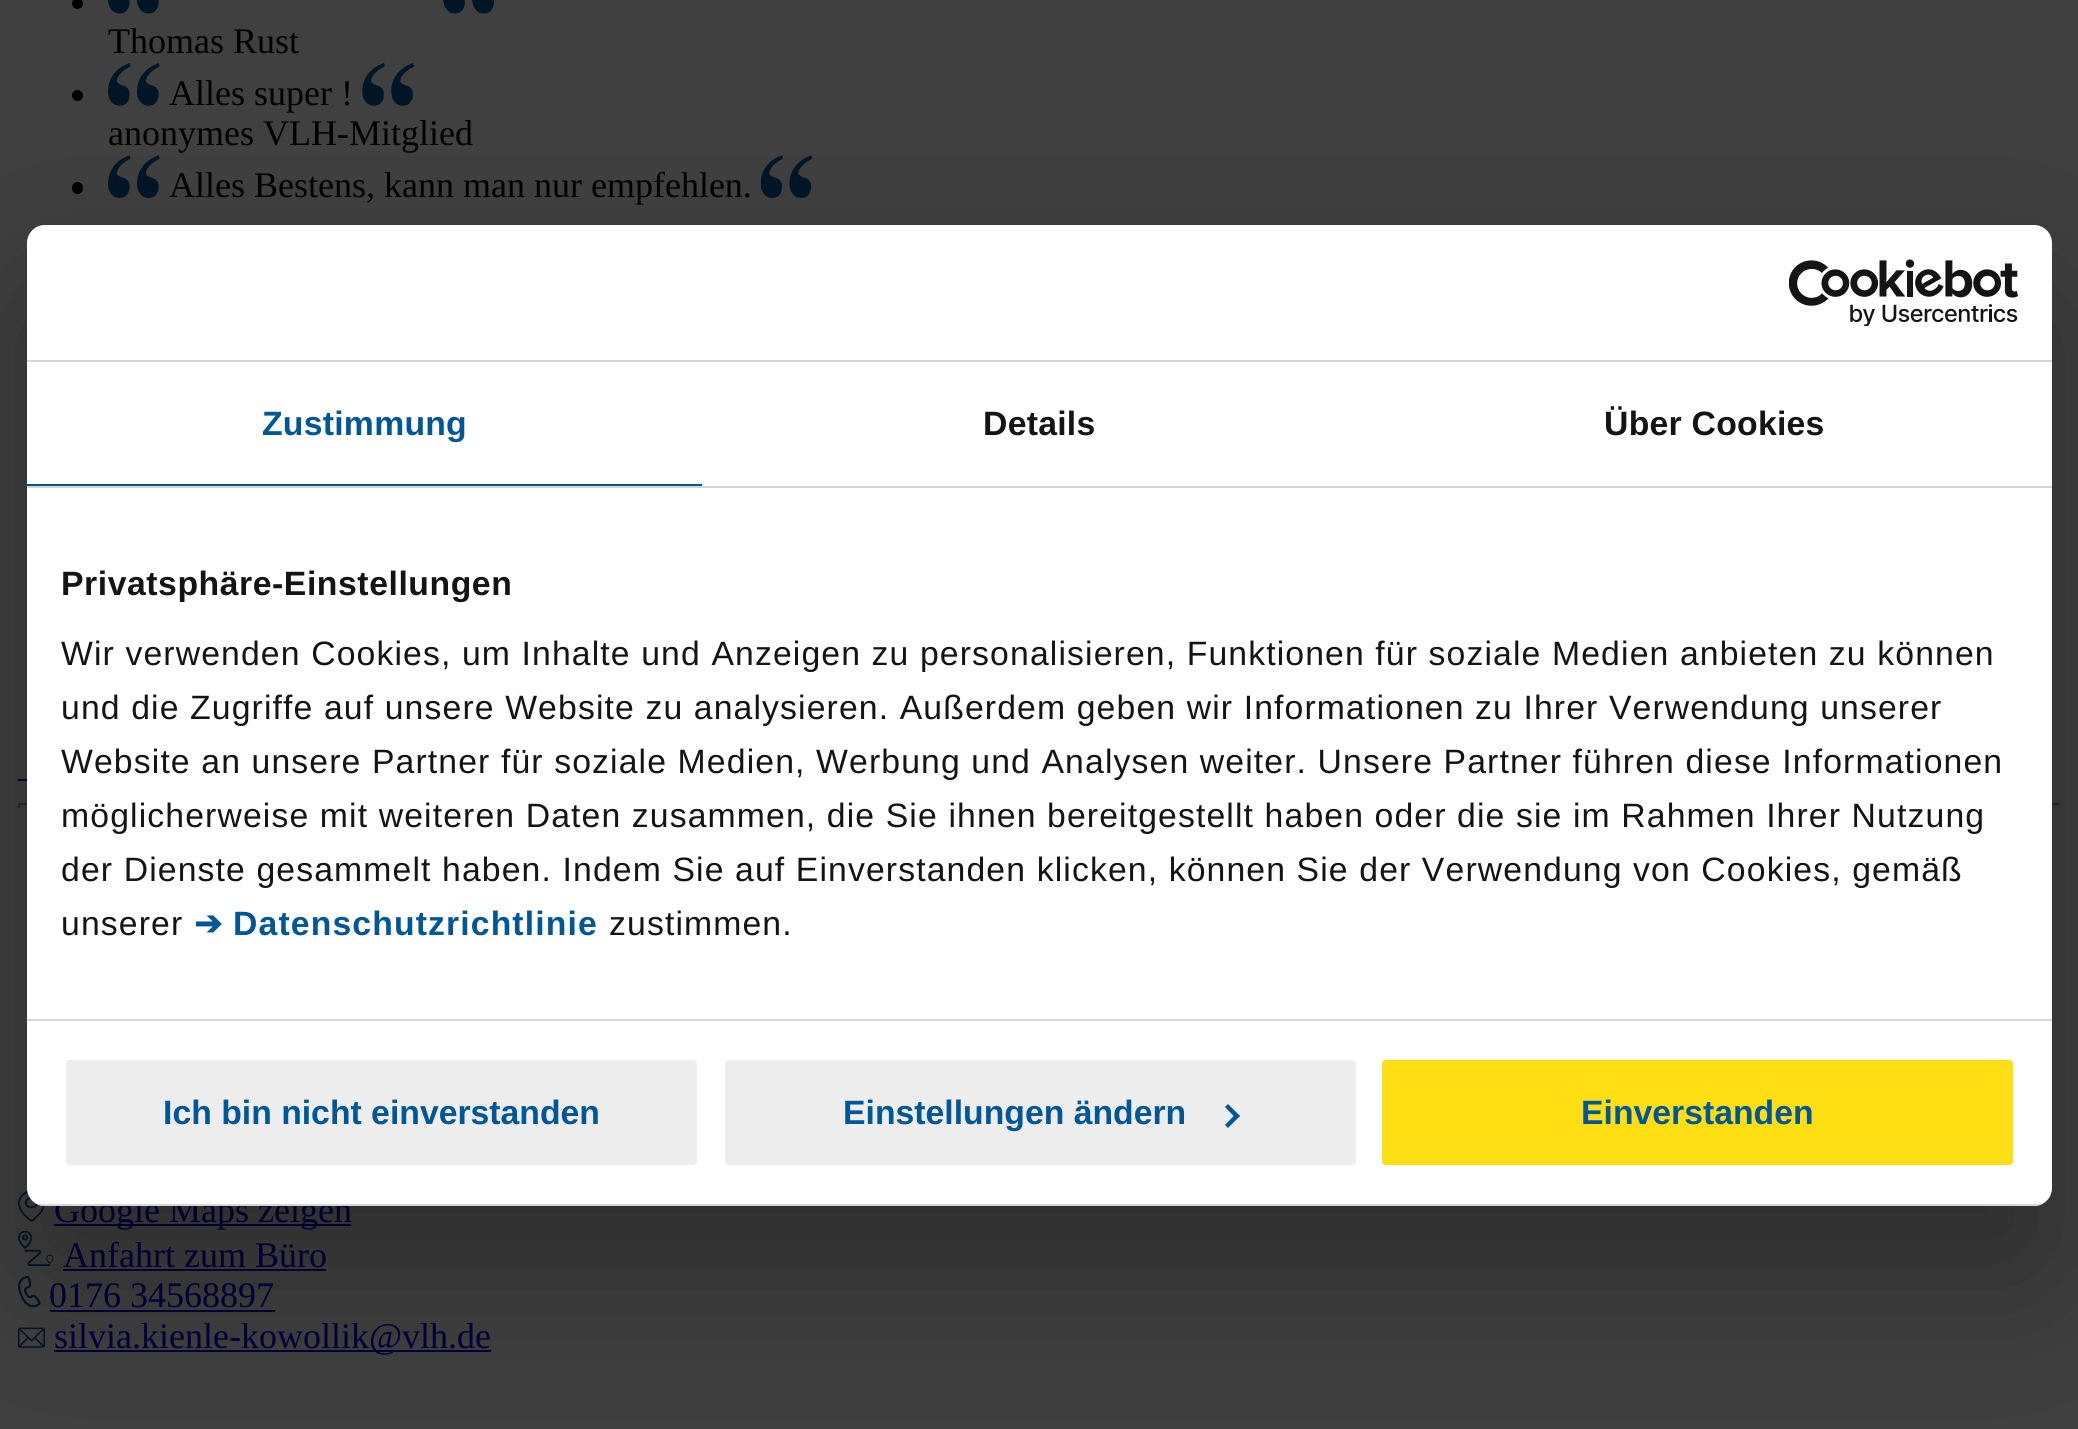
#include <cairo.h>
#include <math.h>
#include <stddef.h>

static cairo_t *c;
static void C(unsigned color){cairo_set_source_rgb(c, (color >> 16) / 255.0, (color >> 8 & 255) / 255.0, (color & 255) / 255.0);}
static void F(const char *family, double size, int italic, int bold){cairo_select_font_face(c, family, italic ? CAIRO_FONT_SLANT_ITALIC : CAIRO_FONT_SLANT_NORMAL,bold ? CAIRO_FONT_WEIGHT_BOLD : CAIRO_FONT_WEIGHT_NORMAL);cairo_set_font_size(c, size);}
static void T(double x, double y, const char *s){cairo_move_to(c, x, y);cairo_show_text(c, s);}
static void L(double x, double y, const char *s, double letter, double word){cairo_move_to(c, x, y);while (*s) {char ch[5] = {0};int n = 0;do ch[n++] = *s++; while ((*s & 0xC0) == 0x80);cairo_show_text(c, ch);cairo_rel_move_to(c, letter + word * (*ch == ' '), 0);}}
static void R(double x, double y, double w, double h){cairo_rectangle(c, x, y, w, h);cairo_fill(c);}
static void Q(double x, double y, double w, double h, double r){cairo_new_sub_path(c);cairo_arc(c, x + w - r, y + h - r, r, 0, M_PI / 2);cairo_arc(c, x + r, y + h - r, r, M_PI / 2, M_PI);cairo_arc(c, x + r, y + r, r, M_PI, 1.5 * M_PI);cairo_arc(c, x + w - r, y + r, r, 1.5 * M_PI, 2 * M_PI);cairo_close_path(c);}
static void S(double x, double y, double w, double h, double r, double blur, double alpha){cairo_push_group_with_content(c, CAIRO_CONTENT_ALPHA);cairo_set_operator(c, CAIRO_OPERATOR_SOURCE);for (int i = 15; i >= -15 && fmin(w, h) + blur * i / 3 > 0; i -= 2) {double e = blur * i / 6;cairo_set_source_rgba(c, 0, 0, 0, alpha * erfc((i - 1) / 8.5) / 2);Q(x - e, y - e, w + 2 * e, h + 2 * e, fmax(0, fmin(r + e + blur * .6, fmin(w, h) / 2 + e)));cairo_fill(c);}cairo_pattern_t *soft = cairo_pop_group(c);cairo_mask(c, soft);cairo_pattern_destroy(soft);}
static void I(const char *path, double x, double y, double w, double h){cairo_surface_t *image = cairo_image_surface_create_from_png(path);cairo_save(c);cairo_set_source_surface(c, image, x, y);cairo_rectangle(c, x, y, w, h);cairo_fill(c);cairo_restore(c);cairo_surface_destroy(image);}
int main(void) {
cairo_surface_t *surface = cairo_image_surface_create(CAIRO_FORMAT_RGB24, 2078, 1429);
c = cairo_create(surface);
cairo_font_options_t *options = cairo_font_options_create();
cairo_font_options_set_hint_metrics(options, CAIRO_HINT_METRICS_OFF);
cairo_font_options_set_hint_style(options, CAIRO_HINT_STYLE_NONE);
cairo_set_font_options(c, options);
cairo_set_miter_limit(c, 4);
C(0x404040);
cairo_paint(c);
C(0x000000);
cairo_arc(c,77.5,3.5,5.5,0,2 * M_PI);
cairo_fill(c);
I("1.png",108,0,51,14);
I("2.png",443,0,51,14);
F("Liberation Serif",36,0,0);
T(108,53,"Thomas Rust");
cairo_new_path(c);
cairo_arc(c,77.5,95.5,5.5,0,2 * M_PI);
cairo_fill(c);
I("3.png",108,63,52,43);
T(169,105,"Alles super !");
I("4.png",362,63,52,43);
T(108,145,"anonymes VLH-Mitglied");
Q(72,182,11,12,5.5);
cairo_fill(c);
I("5.png",108,155,52,43);
T(169,197,"Alles Bestens, kann man nur empfehlen.");
I("6.png",761,155,51,43);
C(0x00003c);
R(18,779,9,2);
C(0x282828);
R(18,803,2043,2);
C(0x3c3c3c);
R(2059,803,2,5);
R(18,806,2043,2);
C(0x282828);
R(18,803,2,5);
I("7.png",18,1190,27,32);
C(0x00003c);
R(54,1224,297,2);
T(54,1222,"Google Maps zeigen");
I("8.png",18,1231,36,35);
T(63,1267,"Anfahrt zum Büro");
R(63,1269,263,2);
I("9.png",18,1275,23,33);
T(49,1307,"0176 34568897");
R(50,1310,225,2);
I("10.png",18,1327,27,21);
R(54,1350,437,2);
T(54,1348,"silvia.kienle-kowollik@vlh.de");
C(0x000000);
S(27,297,2025,981,18,76.5,.3);
C(0xffffff);
Q(27,225,2025,981,18);
cairo_fill(c);
C(0xd6d6d6);
R(27,360,2025,2);
I("11.png",1789,259,229,67);
R(27,486,2025,2);
C(0x015697);
R(27,484,675,2);
F("Liberation Sans",33.75,0,1);
L(262,435,"Zustimmung",.25,0);
C(0x141414);
L(983,435,"Details",.25,0);
L(1604,435,"Über Cookies",.25,0);
C(0xd6d6d6);
R(27,1019,2025,2);
C(0x141414);
L(61,595,"Privatsphäre-Einstellungen",.55,0);
F("Liberation Sans",33.75,0,0);
L(61,665,"Wir verwenden Cookies, um Inhalte und Anzeigen zu personalisieren, Funktionen für soziale Medien anbieten zu können",1.12,0);
L(61,719,"und die Zugriffe auf unsere Website zu analysieren. Außerdem geben wir Informationen zu Ihrer Verwendung unserer",1.12,0);
L(61,773,"Website an unsere Partner für soziale Medien, Werbung und Analysen weiter. Unsere Partner führen diese Informationen",1.12,0);
L(61,827,"möglicherweise mit weiteren Daten zusammen, die Sie ihnen bereitgestellt haben oder die sie im Rahmen Ihrer Nutzung",1.12,0);
L(61,881,"der Dienste gesammelt haben. Indem Sie auf Einverstanden klicken, können Sie der Verwendung von Cookies, gemäß",1.12,0);
L(61,935,"unserer",1.12,0);
F("DejaVu Sans",33.75,0,1);
C(0x015697);
L(194,935,"➔",1.12,0);
F("Liberation Sans",33.75,0,1);
L(233,935,"Datenschutzrichtlinie",1.12,0);
F("Liberation Sans",33.75,0,0);
C(0x141414);
L(609,935,"zustimmen.",1.12,0);
cairo_save(c);
Q(27,225,2025,981,18);
cairo_clip(c);
C(0xd6d6d6);
R(37,1204,2005,2);
cairo_restore(c);
C(0xededed);
Q(63.5,1057.5,636,110,6.5);
cairo_fill_preserve(c);
C(0xffffff);
cairo_set_line_width(c,5);
cairo_stroke(c);
F("Liberation Sans",33.75,0,1);
C(0x015697);
T(163,1124,"Ich bin nicht einverstanden");
C(0xededed);
Q(722.5,1057.5,636,110,6.5);
cairo_fill_preserve(c);
C(0xffffff);
cairo_stroke(c);
C(0x015697);
T(843,1124,"Einstellungen ändern");
cairo_new_path(c);
cairo_move_to(c,1228,1104);
cairo_line_to(c,1240,1116);
cairo_line_to(c,1236.5,1119);
cairo_line_to(c,1225,1107);
cairo_close_path(c);
cairo_fill(c);
cairo_new_path(c);
cairo_move_to(c,1236.5,1113);
cairo_line_to(c,1240,1116);
cairo_line_to(c,1228,1128);
cairo_line_to(c,1225,1125);
cairo_close_path(c);
cairo_fill(c);
C(0xffde14);
Q(1379.5,1057.5,636,110,6.5);
cairo_fill_preserve(c);
C(0xffffff);
cairo_stroke(c);
C(0x015697);
T(1581,1124,"Einverstanden");
cairo_surface_write_to_png(surface, "o.png");
cairo_font_options_destroy(options);
cairo_destroy(c);
cairo_surface_destroy(surface);
return 0;
}
